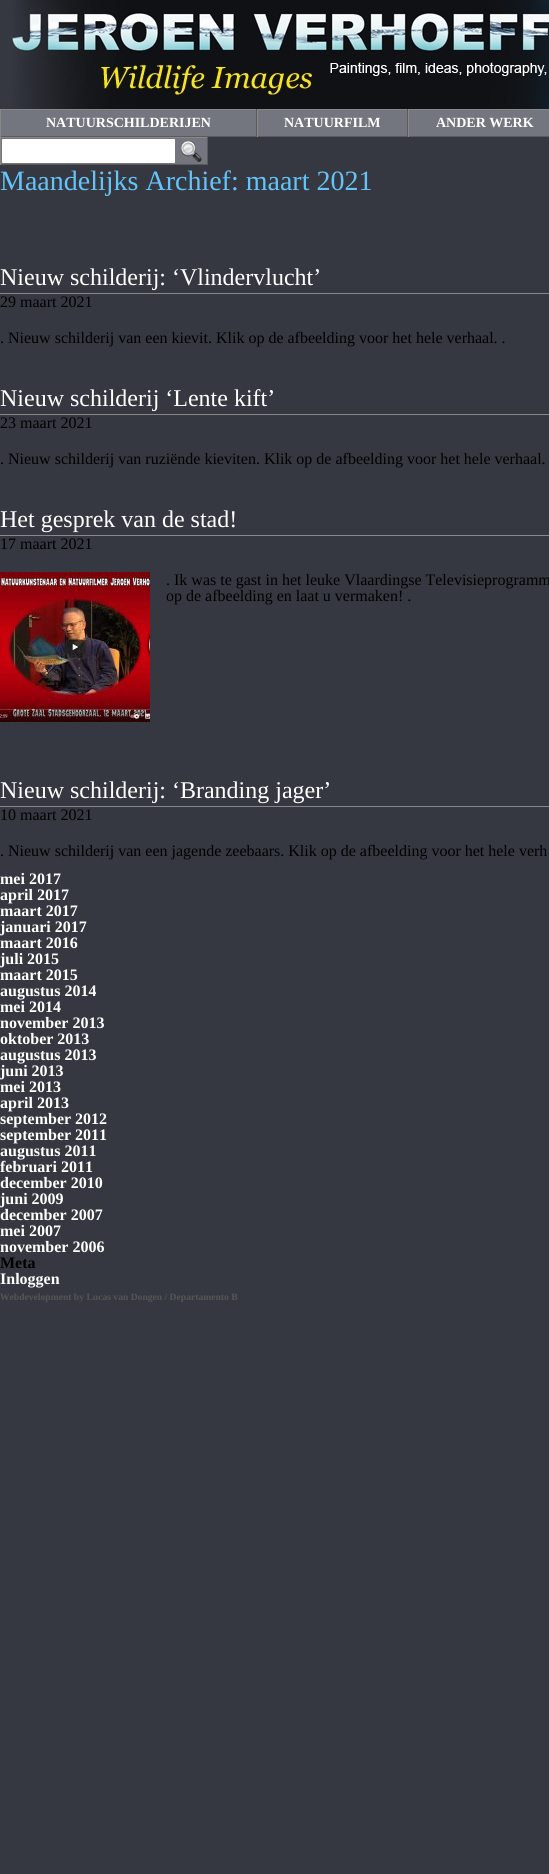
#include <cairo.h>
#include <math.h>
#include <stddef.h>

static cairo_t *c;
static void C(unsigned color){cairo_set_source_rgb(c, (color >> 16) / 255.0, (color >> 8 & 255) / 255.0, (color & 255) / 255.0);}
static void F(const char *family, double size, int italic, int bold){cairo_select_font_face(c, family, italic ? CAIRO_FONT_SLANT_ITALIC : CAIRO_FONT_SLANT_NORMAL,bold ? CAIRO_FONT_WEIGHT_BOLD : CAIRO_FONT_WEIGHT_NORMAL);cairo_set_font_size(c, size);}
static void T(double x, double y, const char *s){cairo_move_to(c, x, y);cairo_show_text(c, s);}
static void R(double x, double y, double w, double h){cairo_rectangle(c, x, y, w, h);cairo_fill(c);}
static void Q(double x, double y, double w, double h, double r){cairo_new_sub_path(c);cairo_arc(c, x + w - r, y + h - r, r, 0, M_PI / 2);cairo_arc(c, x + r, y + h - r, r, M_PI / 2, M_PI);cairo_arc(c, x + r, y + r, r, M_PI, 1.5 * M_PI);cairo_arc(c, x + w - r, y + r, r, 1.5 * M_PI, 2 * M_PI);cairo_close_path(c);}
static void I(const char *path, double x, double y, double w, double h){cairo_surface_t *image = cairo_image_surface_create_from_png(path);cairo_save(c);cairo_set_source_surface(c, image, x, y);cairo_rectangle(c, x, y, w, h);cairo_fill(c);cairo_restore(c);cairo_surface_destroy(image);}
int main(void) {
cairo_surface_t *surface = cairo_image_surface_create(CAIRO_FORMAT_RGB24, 549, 1874);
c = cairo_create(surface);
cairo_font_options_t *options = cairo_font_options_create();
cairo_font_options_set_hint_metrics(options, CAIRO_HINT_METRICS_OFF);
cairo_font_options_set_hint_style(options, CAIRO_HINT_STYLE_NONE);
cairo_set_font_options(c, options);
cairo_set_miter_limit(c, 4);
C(0x353841);
cairo_paint(c);
C(0x73767f);
R(1,110,255,26);
C(0x888888);
R(0,109,549,1);
C(0x5b5b5b);
R(256,109,1,28);
R(0,136,257,1);
C(0x888888);
R(0,109,1,28);
F("Liberation Serif",14,0,1);
C(0xffffff);
T(46,127,"NATUURSCHILDERIJEN");
C(0x73767f);
R(258,110,149,26);
C(0x5b5b5b);
R(407,109,1,28);
R(257,136,292,1);
C(0x888888);
R(257,109,1,28);
C(0xffffff);
T(284,127,"NATUURFILM");
C(0x73767f);
R(409,110,140,26);
C(0x888888);
R(408,109,1,28);
C(0xffffff);
T(436,127,"ANDER WERK");
C(0x73767f);
R(1,138,206,26);
C(0x888888);
R(0,137,208,1);
C(0x5b5b5b);
R(207,137,1,28);
R(0,164,208,1);
C(0x888888);
R(0,137,1,28);
C(0xffffff);
Q(1.5,138.5,174,25,1.5);
cairo_fill_preserve(c);
C(0x767676);
cairo_set_line_width(c,1);
cairo_stroke(c);
I("1.png",180,140,22,22);
I("2.png",11,0,538,109);
F("Liberation Serif",28,0,0);
C(0x64c4f7);
T(0,190,"Maandelijks Archief: maart 2021");
F("Liberation Serif",24,0,0);
C(0xffffff);
T(0,285,"Nieuw schilderij: ‘Vlindervlucht’");
C(0x888888);
R(0,293,549,1);
F("Liberation Serif",16,0,0);
C(0x000000);
T(0,307,"29 maart 2021");
T(0,343,". Nieuw schilderij van een kievit. Klik op de afbeelding voor het hele verhaal. .");
F("Liberation Serif",24,0,0);
C(0xffffff);
T(0,406,"Nieuw schilderij ‘Lente kift’");
C(0x888888);
R(0,414,549,1);
F("Liberation Serif",16,0,0);
C(0x000000);
T(0,428,"23 maart 2021");
T(0,464,". Nieuw schilderij van ruziënde kieviten. Klik op de afbeelding voor het hele verhaal.");
F("Liberation Serif",24,0,0);
C(0xffffff);
T(0,527,"Het gesprek van de stad!");
C(0x888888);
R(0,535,549,1);
F("Liberation Serif",16,0,0);
C(0x000000);
T(0,549,"17 maart 2021");
I("3.png",0,572,150,150);
T(166,585,". Ik was te gast in het leuke Vlaardingse Televisieprogramm");
T(166,601,"op de afbeelding en laat u vermaken! .");
F("Liberation Serif",24,0,0);
C(0xffffff);
T(0,798,"Nieuw schilderij: ‘Branding jager’");
C(0x888888);
R(0,806,549,1);
F("Liberation Serif",16,0,0);
C(0x000000);
T(0,820,"10 maart 2021");
T(0,856,". Nieuw schilderij van een jagende zeebaars. Klik op de afbeelding voor het hele verh");
F("Liberation Serif",16,0,1);
C(0xffffff);
T(0,884,"mei 2017");
T(0,900,"april 2017");
T(0,916,"maart 2017");
T(0,932,"januari 2017");
T(0,948,"maart 2016");
T(0,964,"juli 2015");
T(0,980,"maart 2015");
T(0,996,"augustus 2014");
T(0,1012,"mei 2014");
T(0,1028,"november 2013");
T(0,1044,"oktober 2013");
T(0,1060,"augustus 2013");
T(0,1076,"juni 2013");
T(0,1092,"mei 2013");
T(0,1108,"april 2013");
T(0,1124,"september 2012");
T(0,1140,"september 2011");
T(0,1156,"augustus 2011");
T(0,1172,"februari 2011");
T(0,1188,"december 2010");
T(0,1204,"juni 2009");
T(0,1220,"december 2007");
T(0,1236,"mei 2007");
T(0,1252,"november 2006");
C(0x000000);
T(0,1268,"Meta");
C(0xffffff);
T(0,1284,"Inloggen");
F("Liberation Serif",9.6,0,1);
C(0x555555);
T(0,1300,"Webdevelopment by Lucas van Dongen / Departamento B");
cairo_surface_write_to_png(surface, "o.png");
cairo_font_options_destroy(options);
cairo_destroy(c);
cairo_surface_destroy(surface);
return 0;
}
